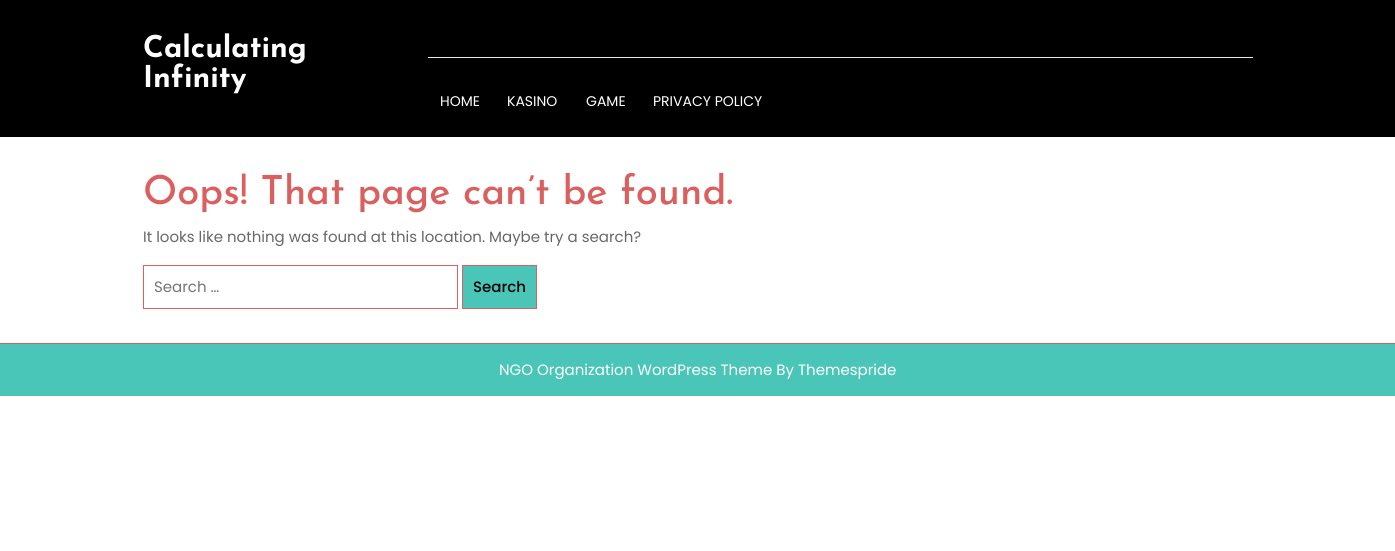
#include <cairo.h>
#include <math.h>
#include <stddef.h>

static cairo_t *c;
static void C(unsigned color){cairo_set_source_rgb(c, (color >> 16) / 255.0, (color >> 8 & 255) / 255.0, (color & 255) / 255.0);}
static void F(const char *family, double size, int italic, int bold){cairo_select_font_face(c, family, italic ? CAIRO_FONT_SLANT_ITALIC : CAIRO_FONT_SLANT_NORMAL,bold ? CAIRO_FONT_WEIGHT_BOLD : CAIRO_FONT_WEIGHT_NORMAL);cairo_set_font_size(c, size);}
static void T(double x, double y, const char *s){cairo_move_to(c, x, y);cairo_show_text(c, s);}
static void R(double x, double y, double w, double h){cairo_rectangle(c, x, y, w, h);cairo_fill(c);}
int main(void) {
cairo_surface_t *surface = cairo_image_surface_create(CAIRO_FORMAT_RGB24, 1395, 551);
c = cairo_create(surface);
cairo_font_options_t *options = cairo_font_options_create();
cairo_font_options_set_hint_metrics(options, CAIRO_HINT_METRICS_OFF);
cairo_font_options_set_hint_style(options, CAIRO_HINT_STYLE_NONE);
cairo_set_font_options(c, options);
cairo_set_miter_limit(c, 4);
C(0xffffff);
cairo_paint(c);
C(0x000000);
R(0,0,1395,137);
F("Josefin Sans",30,0,1);
C(0xffffff);
T(143,57,"Calculating");
T(143,87,"Infinity");
C(0xe6e6e6);
R(428,57,825,1);
F("Poppins",14,0,0);
C(0xffffff);
T(440,106,"HOME");
T(507,106,"KASINO");
T(586,106,"GAME");
T(653,106,"PRIVACY POLICY");
F("Josefin Sans Medium",40,0,0);
C(0xdb5f5f);
T(143,204,"Oops! That page can’t be found.");
F("Poppins",15,0,0);
C(0x676767);
T(143,242,"It looks like nothing was found at this location. Maybe try a search?");
cairo_rectangle(c,143.5,265.5,314,43);
C(0xdb5f5f);
cairo_set_line_width(c,1);
cairo_stroke(c);
C(0x757575);
T(154,292,"Search …");
C(0x4ac6b9);
cairo_rectangle(c,462.5,265.5,74,43);
cairo_fill_preserve(c);
C(0xdb5f5f);
cairo_stroke(c);
F("Poppins Medium",15,0,0);
C(0x000000);
T(473,292,"Search");
C(0xdb5f5f);
R(0,343,1395,1);
C(0x4ac6b9);
R(0,344,1395,52);
F("Poppins",15,0,0);
C(0xffffff);
T(499,375,"NGO Organization WordPress Theme By Themespride");
cairo_surface_write_to_png(surface, "o.png");
cairo_font_options_destroy(options);
cairo_destroy(c);
cairo_surface_destroy(surface);
return 0;
}
